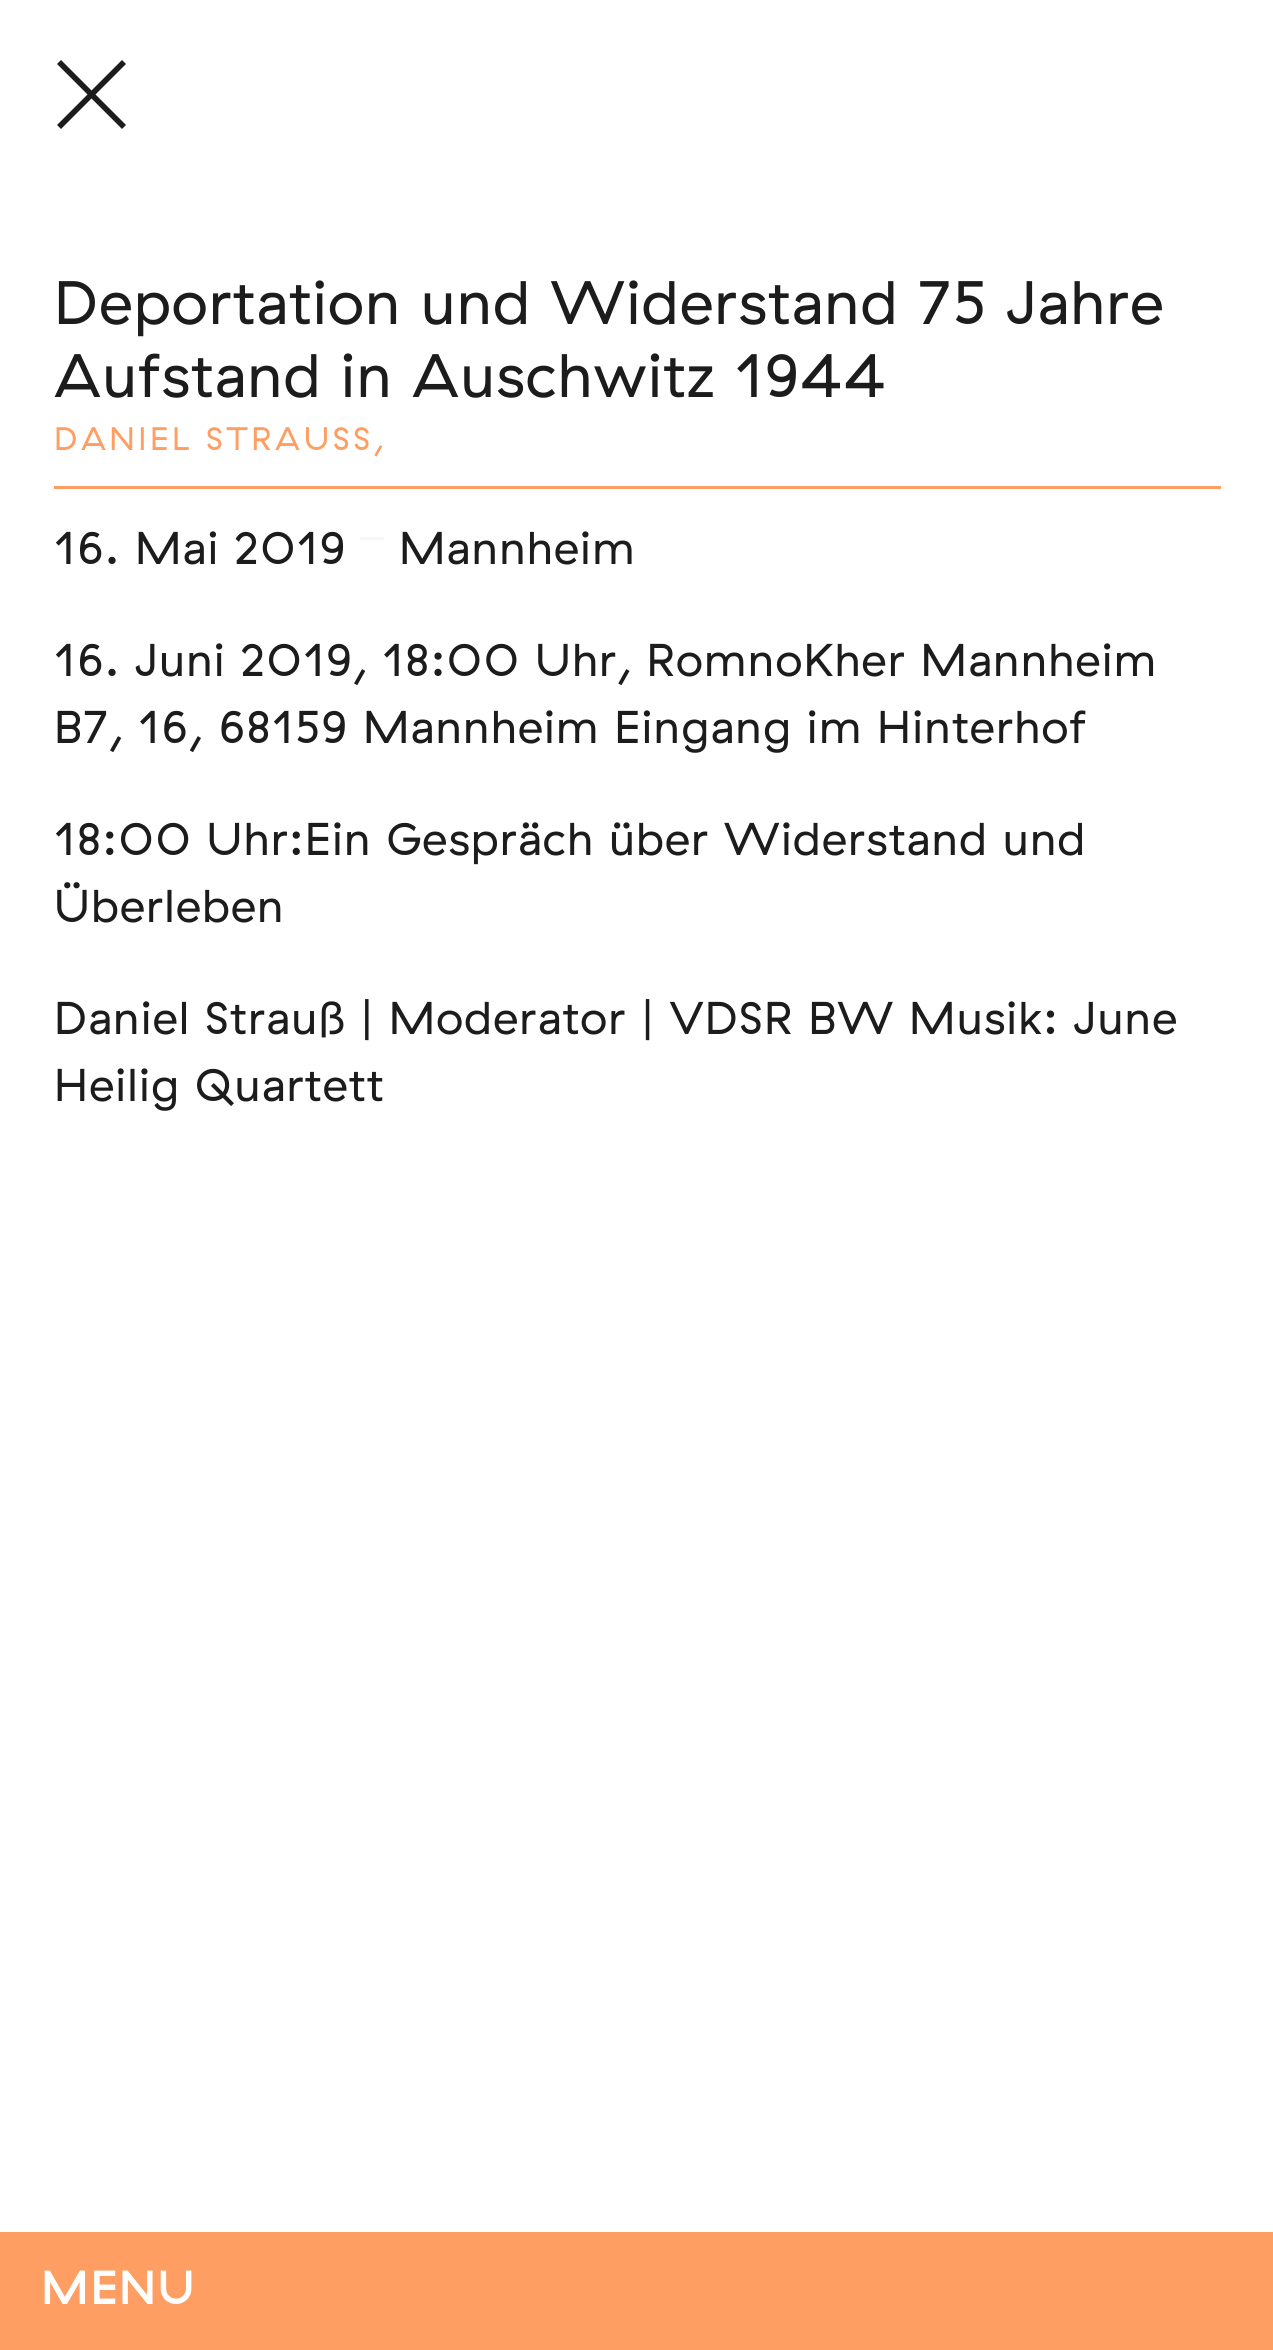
#include <cairo.h>
#include <math.h>
#include <stddef.h>

static cairo_t *c;
static void C(unsigned color){cairo_set_source_rgb(c, (color >> 16) / 255.0, (color >> 8 & 255) / 255.0, (color & 255) / 255.0);}
static void F(const char *family, double size, int italic, int bold){cairo_select_font_face(c, family, italic ? CAIRO_FONT_SLANT_ITALIC : CAIRO_FONT_SLANT_NORMAL,bold ? CAIRO_FONT_WEIGHT_BOLD : CAIRO_FONT_WEIGHT_NORMAL);cairo_set_font_size(c, size);}
static void L(double x, double y, const char *s, double letter, double word){cairo_move_to(c, x, y);while (*s) {char ch[5] = {0};int n = 0;do ch[n++] = *s++; while ((*s & 0xC0) == 0x80);cairo_show_text(c, ch);cairo_rel_move_to(c, letter + word * (*ch == ' '), 0);}}
static void R(double x, double y, double w, double h){cairo_rectangle(c, x, y, w, h);cairo_fill(c);}
int main(void) {
cairo_surface_t *surface = cairo_image_surface_create(CAIRO_FORMAT_RGB24, 1273, 2350);
c = cairo_create(surface);
cairo_font_options_t *options = cairo_font_options_create();
cairo_font_options_set_hint_metrics(options, CAIRO_HINT_METRICS_OFF);
cairo_font_options_set_hint_style(options, CAIRO_HINT_STYLE_NONE);
cairo_set_font_options(c, options);
cairo_set_miter_limit(c, 4);
C(0xffffff);
cairo_paint(c);
C(0x1c1c1c);
cairo_new_path(c);
cairo_move_to(c,61,60);
cairo_line_to(c,126,125);
cairo_line_to(c,122,129);
cairo_line_to(c,57,64);
cairo_close_path(c);
cairo_fill(c);
cairo_new_path(c);
cairo_move_to(c,57,125);
cairo_line_to(c,122,60);
cairo_line_to(c,126,64);
cairo_line_to(c,61,129);
cairo_close_path(c);
cairo_fill(c);
F("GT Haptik",61.25,0,0);
L(54,324,"Deportation und Widerstand 75 Jahre",1.2,0);
L(54,397,"Aufstand in Auschwitz 1944",1.2,0);
F("GT Haptik",32.6,0,0);
C(0xff9e62);
L(54,450,"DANIEL STRAUSS,",3.6,0);
R(54,486,1167,3);
F("GT Haptik",45.9,0,0);
C(0x1c1c1c);
L(54,564,"16. Mai 2019",1.2,0);
C(0xf6f6f6);
R(360,537,24,3);
C(0x1c1c1c);
L(399,564,"Mannheim",1.2,0);
L(54,676,"16. Juni 2019, 18:00 Uhr, RomnoKher Mannheim",1.2,0);
L(54,743,"B7, 16, 68159 Mannheim Eingang im Hinterhof",1.2,0);
L(54,855,"18:00 Uhr:Ein Gespräch über Widerstand und",1.2,0);
L(54,922,"Überleben",1.2,0);
L(54,1034,"Daniel Strauß | Moderator | VDSR BW Musik: June",1.2,0);
L(54,1101,"Heilig Quartett",1.2,0);
C(0xff9e62);
R(0,2232,1273,118);
F("GT Haptik",45.9,0,1);
C(0xffffff);
L(41,2304,"MENU",3,0);
cairo_surface_write_to_png(surface, "o.png");
cairo_font_options_destroy(options);
cairo_destroy(c);
cairo_surface_destroy(surface);
return 0;
}
